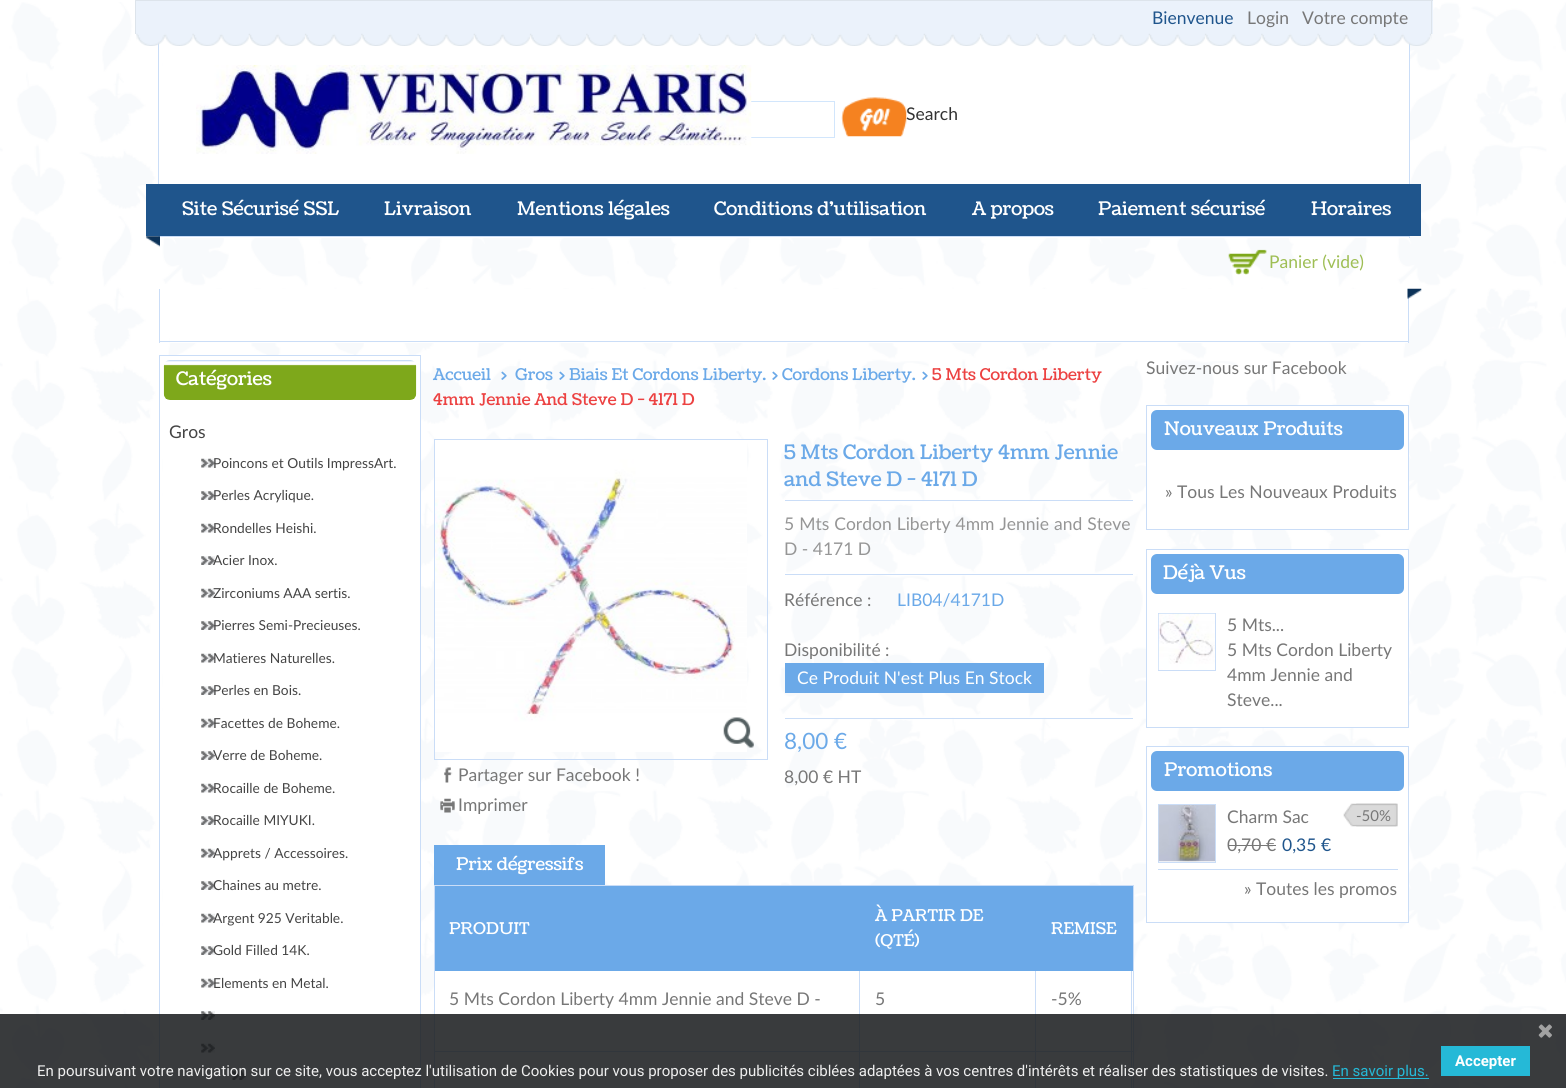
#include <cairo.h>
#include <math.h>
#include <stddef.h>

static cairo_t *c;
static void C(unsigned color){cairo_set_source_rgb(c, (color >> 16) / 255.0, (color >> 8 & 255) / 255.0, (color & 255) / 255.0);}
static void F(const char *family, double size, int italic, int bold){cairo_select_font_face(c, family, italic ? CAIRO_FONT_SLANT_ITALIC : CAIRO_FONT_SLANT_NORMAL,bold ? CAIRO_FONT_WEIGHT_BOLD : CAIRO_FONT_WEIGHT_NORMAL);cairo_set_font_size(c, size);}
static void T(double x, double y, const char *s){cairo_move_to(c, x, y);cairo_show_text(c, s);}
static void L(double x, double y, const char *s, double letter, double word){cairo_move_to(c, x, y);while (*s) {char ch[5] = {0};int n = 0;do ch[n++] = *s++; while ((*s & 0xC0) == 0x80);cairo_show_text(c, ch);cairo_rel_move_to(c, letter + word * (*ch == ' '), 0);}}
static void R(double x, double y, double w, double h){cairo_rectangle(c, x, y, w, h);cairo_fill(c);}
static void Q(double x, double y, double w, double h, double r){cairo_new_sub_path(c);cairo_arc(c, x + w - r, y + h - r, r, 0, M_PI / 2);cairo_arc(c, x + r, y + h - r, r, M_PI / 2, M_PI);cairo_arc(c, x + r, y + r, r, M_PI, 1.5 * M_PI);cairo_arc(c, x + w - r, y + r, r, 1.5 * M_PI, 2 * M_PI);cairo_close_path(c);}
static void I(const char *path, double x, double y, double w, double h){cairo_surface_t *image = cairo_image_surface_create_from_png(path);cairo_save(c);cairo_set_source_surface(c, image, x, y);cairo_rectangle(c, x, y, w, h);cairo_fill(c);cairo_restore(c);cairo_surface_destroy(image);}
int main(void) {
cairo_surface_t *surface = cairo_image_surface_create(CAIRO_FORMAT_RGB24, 1566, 1088);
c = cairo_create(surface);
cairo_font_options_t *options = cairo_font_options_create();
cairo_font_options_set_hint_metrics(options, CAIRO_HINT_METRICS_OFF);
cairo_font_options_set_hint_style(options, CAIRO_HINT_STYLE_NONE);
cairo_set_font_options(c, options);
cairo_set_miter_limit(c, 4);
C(0xffffff);
cairo_paint(c);
I("1.png",0,2,1566,1086);
C(0xebf2fb);
R(136,1,1297,33);
C(0xdde4eb);
R(135,0,1298,1);
R(1431,0,1,34);
R(135,0,1,34);
C(0xffffff);
R(163,34,1246,204);
C(0xcaddf7);
R(1409,43,1,195);
R(158,236,1252,1);
R(158,34,1,204);
cairo_rectangle(c,585.5,101.5,249,36);
C(0xd2e6fc);
cairo_set_line_width(c,1);
cairo_stroke(c);
F("Lato",17.5,0,0);
C(0x333333);
T(906,120,"Search");
I("2.png",841,97,66,40);
C(0x1f558c);
T(1152,24,"Bienvenue");
C(0x777777);
T(1247,24,"Login");
T(1302,24,"Votre compte");
I("3.png",1228,249,39,26);
C(0x9ebe54);
T(1269,268,"Panier (vide)");
I("4.png",136,33,1296,13);
I("5.png",196,65,556,89);
C(0x1f558c);
R(146,184,1275,52);
F("Coustard",18.75,0,0);
C(0xffffff);
T(182,215,"Site Sécurisé SSL");
T(384,215,"Livraison");
T(517,215,"Mentions légales");
T(714,215,"Conditions d'utilisation");
T(972,215,"A propos");
T(1098,215,"Paiement sécurisé");
T(1311,215,"Horaires");
I("6.png",146,236,14,11);
R(170,289,1238,54);
C(0xcaddf7);
R(1408,289,1,54);
I("7.png",1407,288,15,11);
R(159,341,1250,1);
R(159,289,1,54);
C(0xffffff);
R(163,356,257,732);
cairo_rectangle(c,159.5,355.5,261,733);
C(0xcaddf7);
cairo_stroke(c);
I("8.png",163,360,254,40);
C(0xffffff);
T(176,385,"Catégories");
F("Lato",17.5,0,0);
C(0x444444);
T(169,438,"Gros");
I("9.png",201,458,14,10);
F("Lato",13.75,0,0);
T(213,468,"Poincons et Outils ImpressArt.");
I("10.png",201,491,14,9);
T(213,500,"Perles Acrylique.");
I("9.png",201,523,14,10);
T(213,533,"Rondelles Heishi.");
I("10.png",201,556,14,9);
T(213,565,"Acier Inox.");
I("9.png",201,588,14,10);
T(213,598,"Zirconiums AAA sertis.");
I("10.png",201,621,14,9);
T(213,630,"Pierres Semi-Precieuses.");
I("9.png",201,653,14,10);
T(213,663,"Matieres Naturelles.");
I("10.png",201,686,14,9);
T(213,695,"Perles en Bois.");
I("9.png",201,718,14,10);
T(213,728,"Facettes de Boheme.");
I("10.png",201,751,14,9);
T(213,760,"Verre de Boheme.");
I("9.png",201,783,14,10);
T(213,793,"Rocaille de Boheme.");
I("10.png",201,816,14,9);
T(213,825,"Rocaille MIYUKI.");
I("9.png",201,848,14,10);
T(213,858,"Apprets / Accessoires.");
I("10.png",201,881,14,9);
T(213,890,"Chaines au metre.");
I("9.png",201,913,14,10);
T(213,923,"Argent 925 Veritable.");
I("10.png",201,946,14,9);
T(213,955,"Gold Filled 14K.");
I("9.png",201,978,14,10);
T(213,988,"Elements en Metal.");
I("10.png",201,1011,14,9);
I("9.png",201,1043,14,10);
I("11.png",232,1071,15,9);
F("Coustard",16.25,0,0);
C(0x6ba9e8);
T(433,380,"Accueil");
T(501,380,">");
T(515,380,"Gros");
T(559,380,"> Biais Et Cordons Liberty.");
T(772,380,"> Cordons Liberty.");
T(922,380,">");
C(0xec4242);
T(932,380,"5 Mts Cordon Liberty");
T(433,405,"4mm Jennie And Steve D - 4171 D");
C(0xcaddf7);
R(785,500,348,1);
F("Coustard",20,0,0);
C(0x6ba9e8);
T(784,459,"5 Mts Cordon Liberty 4mm Jennie");
T(784,486,"and Steve D - 4171 D");
F("Lato",17.5,0,0);
C(0x969696);
L(784,530,"5 Mts Cordon Liberty 4mm Jennie and Steve",0,.5);
T(784,555,"D - 4171 D");
C(0xcaddf7);
R(785,574,348,1);
C(0x777777);
T(784,606,"Référence :");
C(0x6ba9e8);
T(897,606,"LIB04/4171D");
C(0x777777);
T(784,656,"Disponibilité :");
C(0x6ba9e8);
R(785,663,259,30);
C(0xffffff);
T(797,684,"Ce Produit N'est Plus En Stock");
C(0xcaddf7);
R(785,718,348,1);
F("Lato",22.5,0,0);
C(0x6ba9e8);
T(784,749,"8,00 €");
F("Lato",17.5,0,0);
C(0x777777);
T(784,783,"8,00 € HT");
cairo_rectangle(c,434.5,439.5,333,320);
C(0xcaddf7);
cairo_stroke(c);
I("12.png",435,440,312,312);
I("13.png",723,717,31,31);
I("14.png",444,767,9,16);
C(0x777777);
T(458,781,"Partager sur Facebook !");
I("15.png",440,798,15,15);
T(458,811,"Imprimer");
C(0x6ba9e8);
R(434,845,171,40);
F("Coustard",17.5,0,0);
C(0xffffff);
T(456,870,"Prix dégressifs");
R(435,971,698,117);
C(0xcaddf7);
R(434,885,700,1);
R(1133,885,1,203);
R(434,885,1,203);
C(0x6ba9e8);
R(435,886,698,85);
F("Coustard",16.25,0,0);
C(0xffffff);
T(449,934,"PRODUIT");
T(875,921,"À PARTIR DE");
T(875,946,"(QTÉ)");
T(1051,934,"REMISE");
C(0xcaddf7);
R(859,971,1,117);
R(435,1051,425,1);
F("Lato",17.5,0,0);
C(0x777777);
T(449,1005,"5 Mts Cordon Liberty 4mm Jennie and Steve D -");
C(0xcaddf7);
R(1035,971,1,117);
R(860,1051,176,1);
C(0x777777);
T(875,1005,"5");
C(0xcaddf7);
R(1131,971,1,117);
R(1036,1051,97,1);
C(0x777777);
T(1051,1005,"-5%");
T(1146,374,"Suivez-nous sur Facebook");
C(0xffffff);
cairo_rectangle(c,1146.5,405.5,262,124);
cairo_fill_preserve(c);
C(0xcaddf7);
cairo_stroke(c);
C(0x6ba9e8);
Q(1151,410,253,40,6);
cairo_fill(c);
F("Coustard",18.75,0,0);
C(0xffffff);
T(1164,435,"Nouveaux Produits");
F("Lato",17.5,0,0);
C(0x777777);
T(1165,498,"» Tous Les Nouveaux Produits");
C(0xffffff);
cairo_rectangle(c,1146.5,549.5,262,178);
cairo_fill_preserve(c);
C(0xcaddf7);
cairo_stroke(c);
C(0x6ba9e8);
Q(1151,554,253,40,6);
cairo_fill(c);
F("Coustard",18.75,0,0);
C(0xffffff);
T(1163,579,"Déjà Vus");
cairo_rectangle(c,1158.5,613.5,57,57);
C(0xcaddf7);
cairo_stroke(c);
I("16.png",1158,613,57,57);
F("Lato",17.5,0,0);
C(0x777777);
T(1227,631,"5 Mts...");
T(1227,656,"5 Mts Cordon Liberty");
T(1227,681,"4mm Jennie and");
T(1227,706,"Steve...");
C(0xffffff);
cairo_rectangle(c,1146.5,746.5,262,176);
cairo_fill_preserve(c);
C(0xcaddf7);
cairo_stroke(c);
C(0x6ba9e8);
Q(1151,751,253,40,6);
cairo_fill(c);
F("Coustard",18.75,0,0);
C(0xffffff);
T(1164,776,"Promotions");
cairo_rectangle(c,1158.5,804.5,57,58);
C(0xcaddf7);
cairo_stroke(c);
I("17.png",1158,805,57,57);
F("Lato",17.5,0,0);
C(0x777777);
T(1227,823,"Charm Sac");
I("18.png",1343,803,55,24);
I("19.png",1356,803,42,24);
F("Lato",15,0,0);
T(1356,821,"-50%");
F("Lato",17.5,0,0);
T(1227,851,"0,70 €");
R(1228,845,48,1);
C(0x1f558c);
T(1282,851,"0,35 €");
C(0xcaddf7);
R(1158,869,240,1);
C(0x777777);
T(1244,895,"» Toutes les promos");
cairo_set_source_rgba(c,0.09,0.098,0.11,0.85);
R(0,1014,1566,74);
I("20.png",1538,1024,14,14);
C(0x25b9d7);
R(1441,1046,89,30);
F("Roboto",15,0,1);
C(0xffffff);
T(1455,1066,"Accepter");
F("Roboto",15,0,0);
C(0xefefef);
T(37,1076,"En poursuivant votre navigation sur ce site, vous acceptez l'utilisation de Cookies pour vous proposer des publicités ciblées adaptées à vos centres d'intérêts et réaliser des statistiques de visites.");
C(0x25b9d7);
R(1333,1078,96,1);
T(1332,1076,"En savoir plus.");
cairo_surface_write_to_png(surface, "o.png");
cairo_font_options_destroy(options);
cairo_destroy(c);
cairo_surface_destroy(surface);
return 0;
}
